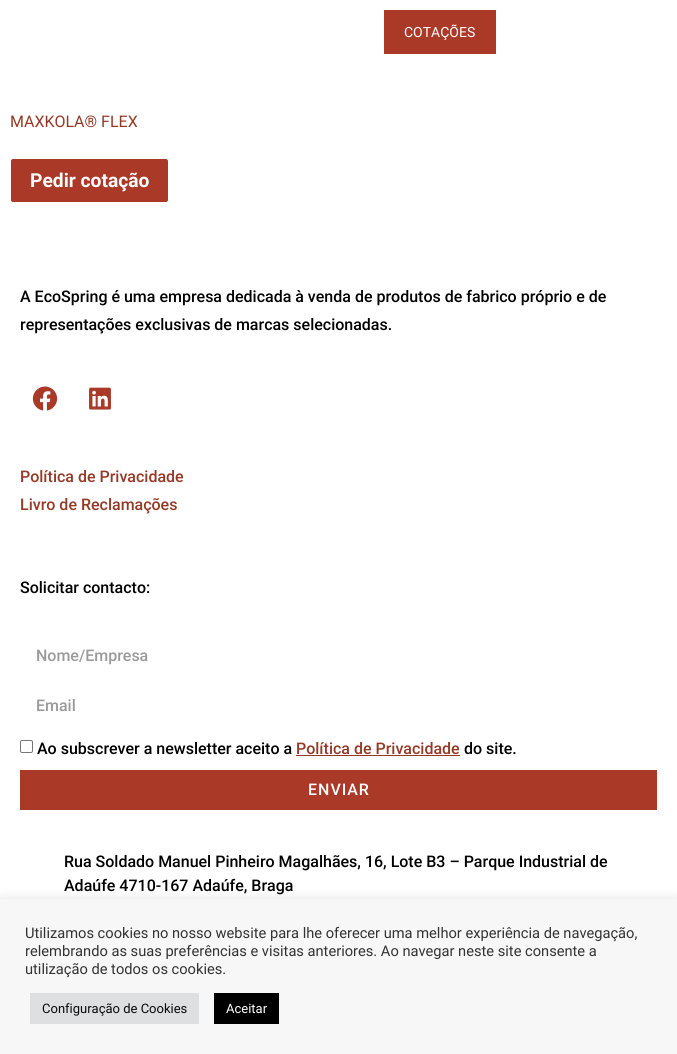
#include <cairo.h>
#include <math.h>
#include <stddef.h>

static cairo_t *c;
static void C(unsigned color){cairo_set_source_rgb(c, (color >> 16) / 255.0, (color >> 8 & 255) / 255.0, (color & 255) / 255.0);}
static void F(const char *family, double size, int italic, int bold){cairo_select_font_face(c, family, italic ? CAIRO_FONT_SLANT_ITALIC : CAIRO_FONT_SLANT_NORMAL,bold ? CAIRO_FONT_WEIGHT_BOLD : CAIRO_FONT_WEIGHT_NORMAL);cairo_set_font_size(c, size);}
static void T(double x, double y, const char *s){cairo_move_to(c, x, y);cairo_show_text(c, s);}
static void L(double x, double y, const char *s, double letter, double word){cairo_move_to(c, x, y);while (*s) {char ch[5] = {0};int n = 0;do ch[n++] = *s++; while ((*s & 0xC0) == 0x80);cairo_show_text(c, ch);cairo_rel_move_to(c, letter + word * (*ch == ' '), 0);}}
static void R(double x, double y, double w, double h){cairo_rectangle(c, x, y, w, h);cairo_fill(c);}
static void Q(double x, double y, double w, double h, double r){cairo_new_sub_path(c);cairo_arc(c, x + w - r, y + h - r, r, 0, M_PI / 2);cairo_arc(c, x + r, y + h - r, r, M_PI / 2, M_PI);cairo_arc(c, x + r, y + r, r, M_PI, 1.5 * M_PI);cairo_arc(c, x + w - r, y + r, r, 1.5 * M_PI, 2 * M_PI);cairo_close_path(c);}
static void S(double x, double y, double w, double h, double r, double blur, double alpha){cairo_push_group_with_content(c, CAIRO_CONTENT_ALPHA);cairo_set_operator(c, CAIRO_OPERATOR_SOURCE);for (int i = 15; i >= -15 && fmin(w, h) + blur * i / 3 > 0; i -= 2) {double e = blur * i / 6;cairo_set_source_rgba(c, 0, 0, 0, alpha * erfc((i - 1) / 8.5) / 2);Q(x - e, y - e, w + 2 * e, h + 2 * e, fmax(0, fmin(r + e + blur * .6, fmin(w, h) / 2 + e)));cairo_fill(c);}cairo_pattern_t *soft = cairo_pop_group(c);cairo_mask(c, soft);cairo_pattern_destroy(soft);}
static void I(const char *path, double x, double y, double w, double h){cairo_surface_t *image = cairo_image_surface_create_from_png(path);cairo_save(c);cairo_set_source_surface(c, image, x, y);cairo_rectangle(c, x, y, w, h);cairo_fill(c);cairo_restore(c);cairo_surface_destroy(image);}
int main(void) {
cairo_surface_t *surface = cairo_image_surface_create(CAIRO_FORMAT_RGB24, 677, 1054);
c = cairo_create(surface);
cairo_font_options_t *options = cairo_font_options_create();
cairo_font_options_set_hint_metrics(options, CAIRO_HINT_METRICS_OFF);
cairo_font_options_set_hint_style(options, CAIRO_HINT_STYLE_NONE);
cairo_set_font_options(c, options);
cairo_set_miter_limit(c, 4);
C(0xffffff);
cairo_paint(c);
C(0xaa3927);
R(384,10,112,44);
F("Roboto",14,0,0);
C(0xffffff);
T(404,37,"COTAÇÕES");
F("Roboto",16,0,0);
C(0x953927);
T(10,127,"MAXKOLA® FLEX");
C(0xaa3927);
Q(10.5,158.5,158,44,2.5);
cairo_fill_preserve(c);
C(0xffffff);
cairo_set_line_width(c,1);
cairo_stroke(c);
F("Roboto",19.25,0,1);
T(30,187,"Pedir cotação");
F("Roboto Medium",16,0,0);
C(0x000000);
T(20,302,"A EcoSpring é uma empresa dedicada à venda de produtos de fabrico próprio e de");
T(20,330,"representações exclusivas de marcas selecionadas.");
I("1.png",32,386,26,25);
I("2.png",89,387,22,23);
C(0x953927);
T(20,482,"Política de Privacidade");
T(20,510,"Livro de Reclamações");
C(0x000000);
T(20,593,"Solicitar contacto:");
C(0x9a9a9a);
T(36,661,"Nome/Empresa");
T(36,711,"Email");
Q(20.5,740.5,12,12,1.5);
C(0x767676);
cairo_stroke(c);
C(0x000000);
T(37,754,"Ao subscrever a newsletter aceito a");
C(0x953927);
T(296,754,"Política de Privacidade");
R(296,755,164,1);
C(0x000000);
T(464,754,"do site.");
C(0xaa3927);
R(20,770,637,40);
C(0xffffff);
L(308,795,"ENVIAR",1,0);
C(0x000000);
T(64,867,"Rua Soldado Manuel Pinheiro Magalhães, 16, Lote B3 – Parque Industrial de");
T(64,891,"Adaúfe 4710-167 Adaúfe, Braga");
C(0xacabab);
S(0,898,677,155,0,5,.3);
C(0xf7f7f7);
R(0,899,677,155);
F("Roboto",14.65,0,0);
C(0x333333);
T(25,938,"Utilizamos cookies no nosso website para lhe oferecer uma melhor experiência de navegação,");
T(25,956,"relembrando as suas preferências e visitas anteriores. Ao navegar neste site consente a");
T(25,974,"utilização de todos os cookies.");
C(0xdedfe0);
R(30,993,169,31);
F("Roboto",13,0,0);
C(0x0a0a0a);
T(42,1013,"Configuração de Cookies");
C(0x000000);
R(214,993,65,31);
C(0xffffff);
T(226,1013,"Aceitar");
cairo_surface_write_to_png(surface, "o.png");
cairo_font_options_destroy(options);
cairo_destroy(c);
cairo_surface_destroy(surface);
return 0;
}
